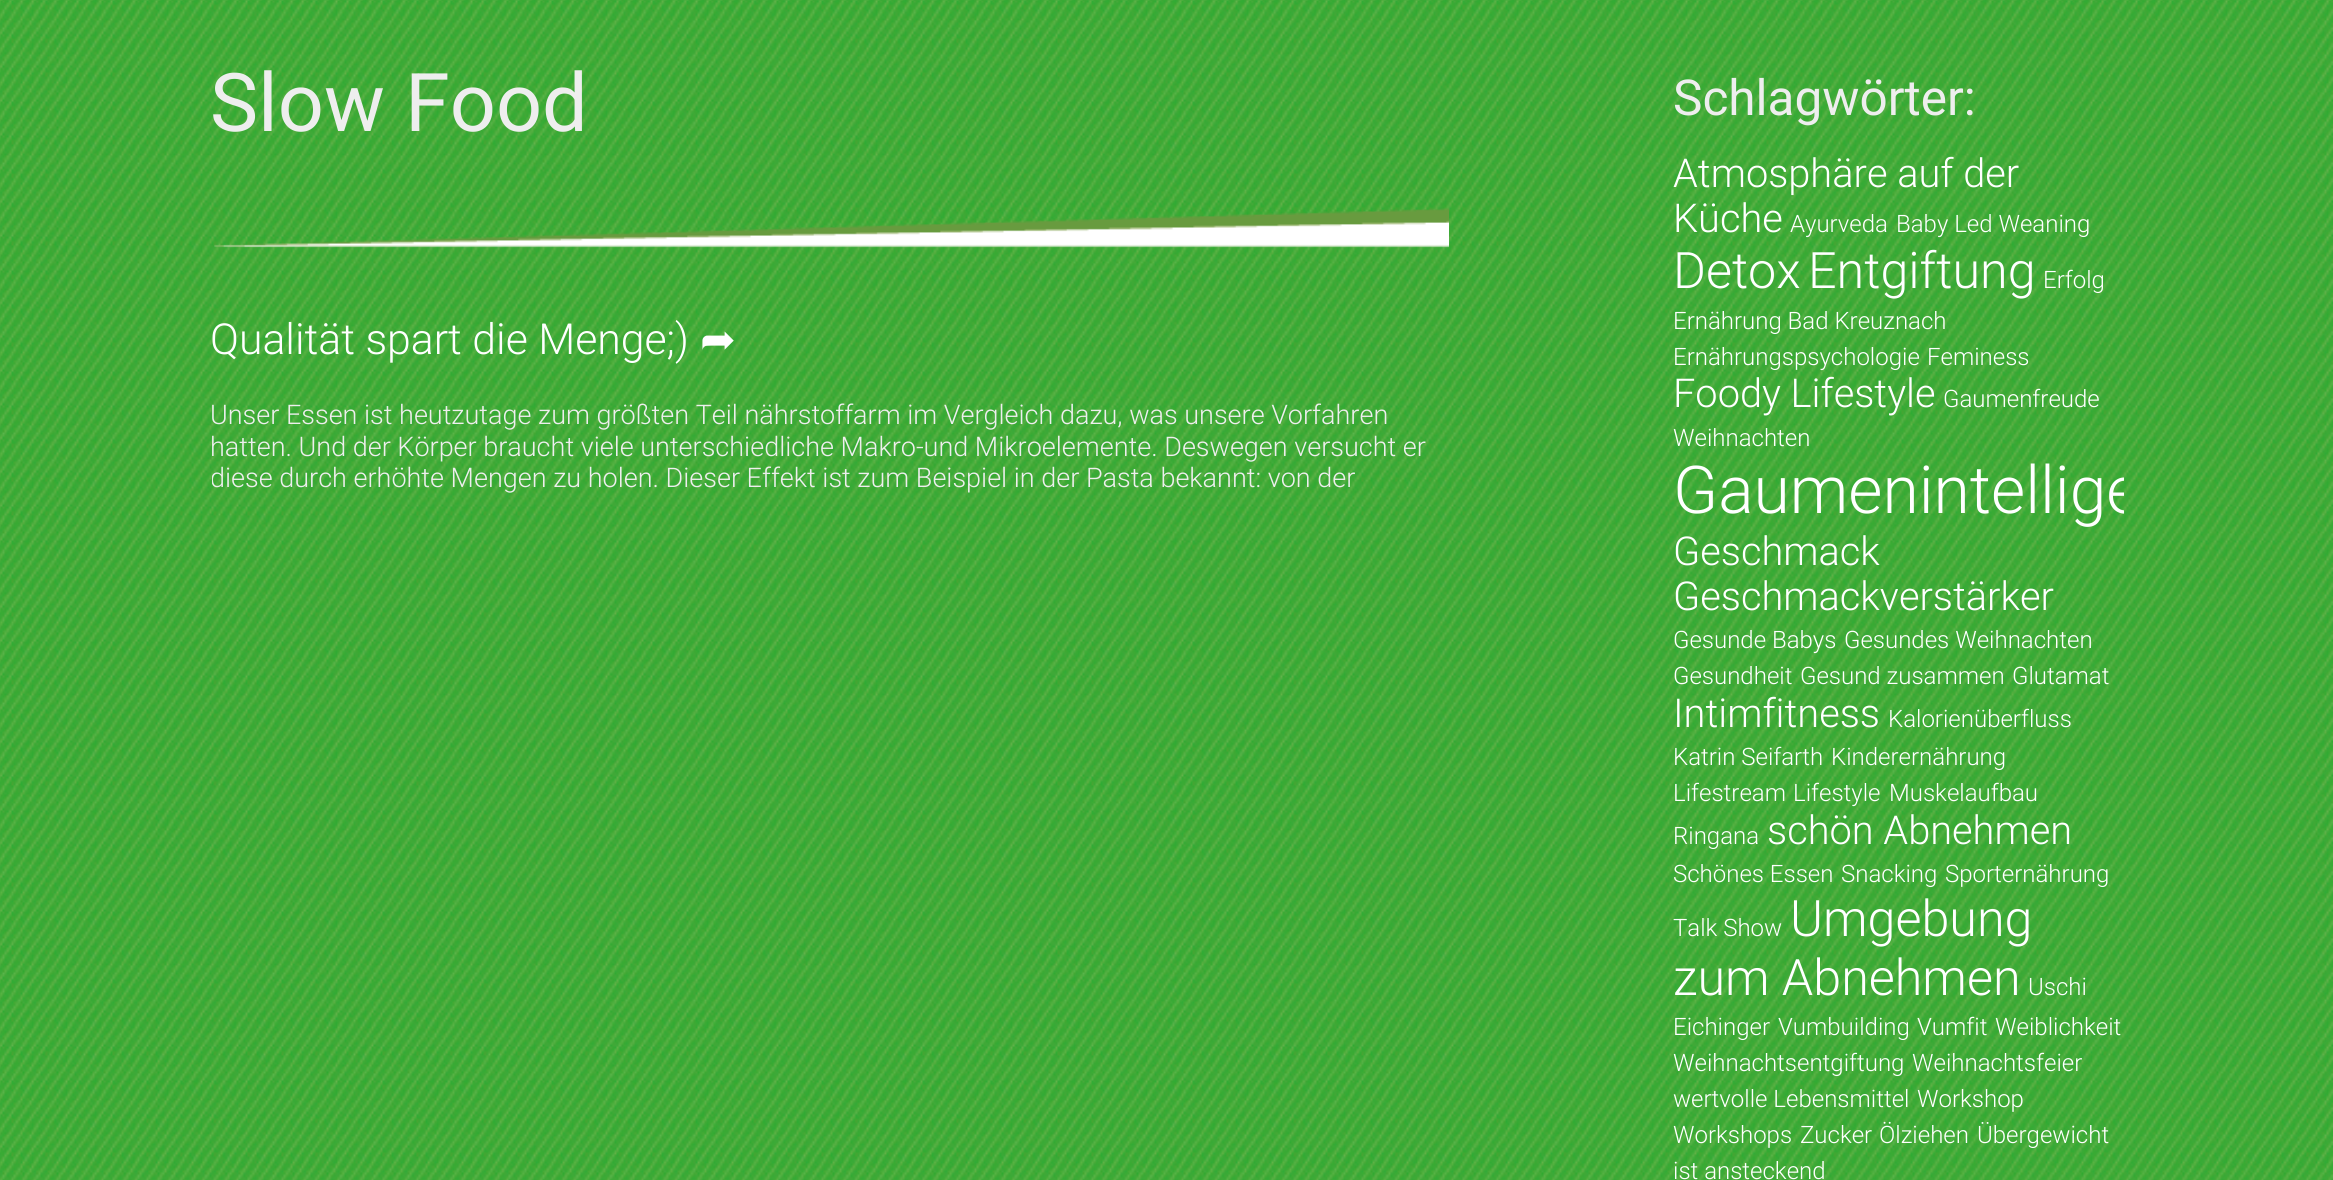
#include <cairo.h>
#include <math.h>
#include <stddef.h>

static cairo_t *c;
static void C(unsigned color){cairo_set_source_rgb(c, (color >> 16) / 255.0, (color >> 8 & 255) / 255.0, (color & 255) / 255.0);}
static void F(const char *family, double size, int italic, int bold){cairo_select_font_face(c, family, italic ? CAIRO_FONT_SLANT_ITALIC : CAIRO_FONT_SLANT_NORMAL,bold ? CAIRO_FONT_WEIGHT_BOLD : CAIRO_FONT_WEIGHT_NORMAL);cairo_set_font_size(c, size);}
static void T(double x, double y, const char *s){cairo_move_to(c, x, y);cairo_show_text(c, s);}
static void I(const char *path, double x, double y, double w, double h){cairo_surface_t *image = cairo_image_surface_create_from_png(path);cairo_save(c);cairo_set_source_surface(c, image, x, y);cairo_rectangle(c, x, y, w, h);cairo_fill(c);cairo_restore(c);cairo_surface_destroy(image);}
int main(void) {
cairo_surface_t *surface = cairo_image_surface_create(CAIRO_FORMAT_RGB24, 2333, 1180);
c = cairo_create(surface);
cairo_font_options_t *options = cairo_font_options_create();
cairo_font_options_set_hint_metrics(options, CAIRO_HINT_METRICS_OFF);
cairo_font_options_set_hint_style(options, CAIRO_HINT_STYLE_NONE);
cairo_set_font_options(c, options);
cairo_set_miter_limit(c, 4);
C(0xffffff);
cairo_paint(c);
I("1.png",0,0,2333,1180);
F("Roboto",81,0,0);
C(0xeeeeee);
T(210,131,"Slow Food");
I("2.png",214,208,1235,40);
F("Roboto Light",42.75,0,0);
C(0xffffff);
T(210,354,"Qualität spart die Menge;)");
F("DejaVu Sans",42.75,0,0);
T(700,354,"➦");
F("Roboto Light",27,0,0);
C(0xeeeeee);
T(210,424,"Unser Essen ist heutzutage zum größten Teil nährstoffarm im Vergleich dazu, was unsere Vorfahren");
T(210,456,"hatten. Und der Körper braucht viele unterschiedliche Makro-und Mikroelemente. Deswegen versucht er");
cairo_save(c);
cairo_rectangle(c,212,2,1912,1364);
cairo_clip(c);
T(210,487,"diese durch erhöhte Mengen zu holen. Dieser Effekt ist zum Beispiel in der Pasta bekannt: von der");
cairo_restore(c);
F("Roboto",49.5,0,0);
T(1673,115,"Schlagwörter:");
F("Roboto Light",39.75,0,0);
C(0xffffff);
T(1673,187,"Atmosphäre auf der");
T(1673,232,"Küche");
F("Roboto Light",24,0,0);
T(1790,232,"Ayurveda");
T(1896,232,"Baby Led Weaning");
F("Roboto Light",50.25,0,0);
T(1673,288,"Detox");
T(1808,288,"Entgiftung");
F("Roboto Light",24,0,0);
T(2043,288,"Erfolg");
T(1673,329,"Ernährung Bad Kreuznach");
T(1673,365,"Ernährungspsychologie");
T(1927,365,"Feminess");
F("Roboto Light",39.75,0,0);
T(1673,407,"Foody Lifestyle");
F("Roboto Light",24,0,0);
T(1943,407,"Gaumenfreude");
T(1673,446,"Weihnachten");
cairo_save(c);
cairo_rectangle(c,212,2,1912,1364);
cairo_clip(c);
F("Roboto Light",66,0,0);
T(1673,513,"Gaumenintellige");
cairo_restore(c);
F("Roboto Light",39.75,0,0);
T(1673,565,"Geschmack");
T(1673,610,"Geschmackverstärker");
F("Roboto Light",24,0,0);
T(1673,648,"Gesunde Babys");
T(1844,648,"Gesundes Weihnachten");
T(1673,684,"Gesundheit");
T(1800,684,"Gesund zusammen");
T(2012,684,"Glutamat");
F("Roboto Light",39.75,0,0);
T(1673,727,"Intimfitness");
F("Roboto Light",24,0,0);
T(1888,727,"Kalorienüberfluss");
T(1673,765,"Katrin Seifarth");
T(1831,765,"Kinderernährung");
T(1673,801,"Lifestream");
T(1793,801,"Lifestyle");
T(1889,801,"Muskelaufbau");
T(1673,844,"Ringana");
F("Roboto Light",39.75,0,0);
T(1767,844,"schön Abnehmen");
F("Roboto Light",24,0,0);
T(1673,882,"Schönes Essen");
T(1841,882,"Snacking");
T(1945,882,"Sporternährung");
T(1673,936,"Talk Show");
F("Roboto Light",50.25,0,0);
T(1790,936,"Umgebung");
T(1673,995,"zum Abnehmen");
F("Roboto Light",24,0,0);
T(2028,995,"Uschi");
T(1673,1035,"Eichinger");
T(1778,1035,"Vumbuilding");
T(1917,1035,"Vumfit");
T(1995,1035,"Weiblichkeit");
T(1673,1071,"Weihnachtsentgiftung");
T(1912,1071,"Weihnachtsfeier");
T(1673,1107,"wertvolle Lebensmittel");
T(1917,1107,"Workshop");
T(1673,1143,"Workshops");
T(1800,1143,"Zucker");
T(1879,1143,"Ölziehen");
T(1977,1143,"Übergewicht");
T(1673,1179,"ist ansteckend");
cairo_surface_write_to_png(surface, "o.png");
cairo_font_options_destroy(options);
cairo_destroy(c);
cairo_surface_destroy(surface);
return 0;
}
